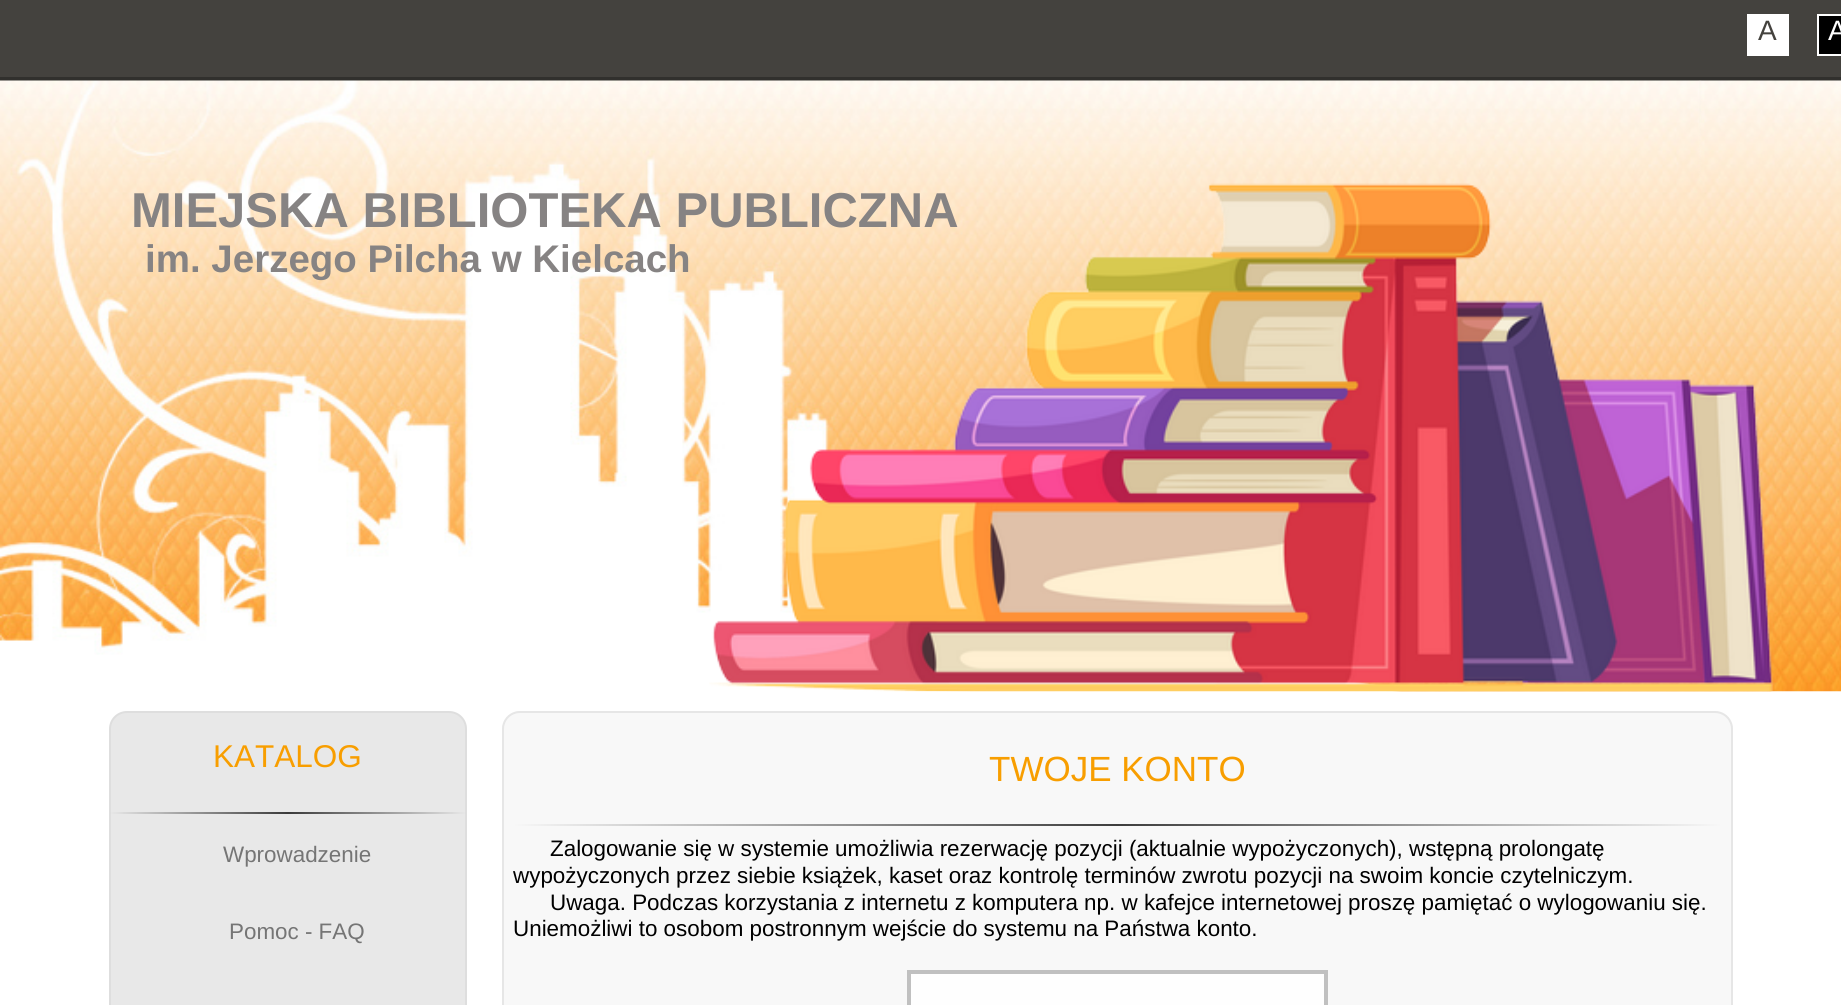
#include <cairo.h>
#include <math.h>
#include <stddef.h>

static cairo_t *c;
static void C(unsigned color){cairo_set_source_rgb(c, (color >> 16) / 255.0, (color >> 8 & 255) / 255.0, (color & 255) / 255.0);}
static void F(const char *family, double size, int italic, int bold){cairo_select_font_face(c, family, italic ? CAIRO_FONT_SLANT_ITALIC : CAIRO_FONT_SLANT_NORMAL,bold ? CAIRO_FONT_WEIGHT_BOLD : CAIRO_FONT_WEIGHT_NORMAL);cairo_set_font_size(c, size);}
static void T(double x, double y, const char *s){cairo_move_to(c, x, y);cairo_show_text(c, s);}
static void R(double x, double y, double w, double h){cairo_rectangle(c, x, y, w, h);cairo_fill(c);}
static void Q(double x, double y, double w, double h, double r){cairo_new_sub_path(c);cairo_arc(c, x + w - r, y + h - r, r, 0, M_PI / 2);cairo_arc(c, x + r, y + h - r, r, M_PI / 2, M_PI);cairo_arc(c, x + r, y + r, r, M_PI, 1.5 * M_PI);cairo_arc(c, x + w - r, y + r, r, 1.5 * M_PI, 2 * M_PI);cairo_close_path(c);}
static void I(const char *path, double x, double y, double w, double h){cairo_surface_t *image = cairo_image_surface_create_from_png(path);cairo_save(c);cairo_set_source_surface(c, image, x, y);cairo_rectangle(c, x, y, w, h);cairo_fill(c);cairo_restore(c);cairo_surface_destroy(image);}
int main(void) {
cairo_surface_t *surface = cairo_image_surface_create(CAIRO_FORMAT_RGB24, 1841, 1005);
c = cairo_create(surface);
cairo_font_options_t *options = cairo_font_options_create();
cairo_font_options_set_hint_metrics(options, CAIRO_HINT_METRICS_OFF);
cairo_font_options_set_hint_style(options, CAIRO_HINT_STYLE_NONE);
cairo_set_font_options(c, options);
cairo_set_miter_limit(c, 4);
cairo_pattern_t *gradient;
C(0xffffff);
cairo_paint(c);
C(0x44423e);
R(0,0,1841,77);
C(0x31302d);
R(0,77,1841,4);
C(0xffffff);
R(1747,14,42,42);
F("Liberation Sans",28,0,0);
C(0x44423e);
T(1758,40,"A");
C(0x000000);
cairo_rectangle(c,1818,15,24,40);
cairo_fill_preserve(c);
C(0xffffff);
cairo_stroke(c);
T(1828,40,"A");
I("1.png",0,80,1841,612);
I("2.png",709,80,1068,612);
F("Liberation Sans",49,0,1);
C(0x868383);
T(131,227,"MIEJSKA BIBLIOTEKA PUBLICZNA");
F("Liberation Sans",38.5,0,1);
T(145,272,"im. Jerzego Pilcha w Kielcach");
C(0xe8e8e8);
cairo_new_path(c);
cairo_move_to(c,127,712);
cairo_line_to(c,449,712);
cairo_curve_to(c,458.5,712,466,719.5,466,729);
cairo_line_to(c,466,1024);
cairo_line_to(c,110,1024);
cairo_line_to(c,110,729);
cairo_curve_to(c,110,719.5,117.5,712,127,712);
cairo_close_path(c);
cairo_fill_preserve(c);
C(0xdedede);
cairo_stroke(c);
F("Liberation Sans",31.5,0,0);
C(0xf89e00);
T(213,767,"KATALOG");
gradient = cairo_pattern_create_linear(110,813,466,813);
cairo_pattern_add_color_stop_rgba(gradient,0,0,0,0,0);
cairo_pattern_add_color_stop_rgba(gradient,.5,0,0,0,.75);
cairo_pattern_add_color_stop_rgba(gradient,1,0,0,0,0);
cairo_set_source(c,gradient);
cairo_pattern_destroy(gradient);
R(110,812,356,2);
F("Liberation Sans",22.4,0,0);
C(0x757575);
T(223,862,"Wprowadzenie");
T(229,939,"Pomoc - FAQ");
C(0xf8f8f8);
Q(502,711,1231,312,18);
cairo_fill(c);
Q(503,712,1229,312,17);
cairo_set_source_rgba(c,0.831,0.831,0.831,0.5);
cairo_stroke(c);
F("Liberation Sans",35,0,0);
C(0xf89e00);
T(989,781,"TWOJE KONTO");
gradient = cairo_pattern_create_linear(513,825,1722,825);
cairo_pattern_add_color_stop_rgba(gradient,0,0.973,0.973,0.973,1);
cairo_pattern_add_color_stop_rgba(gradient,.5,0.243,0.243,0.243,1);
cairo_pattern_add_color_stop_rgba(gradient,1,0.973,0.973,0.973,1);
cairo_set_source(c,gradient);
cairo_pattern_destroy(gradient);
R(513,824,1209,2);
F("Liberation Sans",22.4,0,0);
C(0x000000);
T(550,856,"Zalogowanie się w systemie umożliwia rezerwację pozycji (aktualnie wypożyczonych), wstępną prolongatę");
T(513,883,"wypożyczonych przez siebie książek, kaset oraz kontrolę terminów zwrotu pozycji na swoim koncie czytelniczym.");
T(550,910,"Uwaga. Podczas korzystania z internetu z komputera np. w kafejce internetowej proszę pamiętać o wylogowaniu się.");
T(513,936,"Uniemożliwi to osobom postronnym wejście do systemu na Państwa konto.");
C(0xfefefe);
cairo_rectangle(c,909,972,417,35);
cairo_fill_preserve(c);
C(0xc0c0c0);
cairo_set_line_width(c,4);
cairo_stroke(c);
cairo_surface_write_to_png(surface, "o.png");
cairo_font_options_destroy(options);
cairo_destroy(c);
cairo_surface_destroy(surface);
return 0;
}
